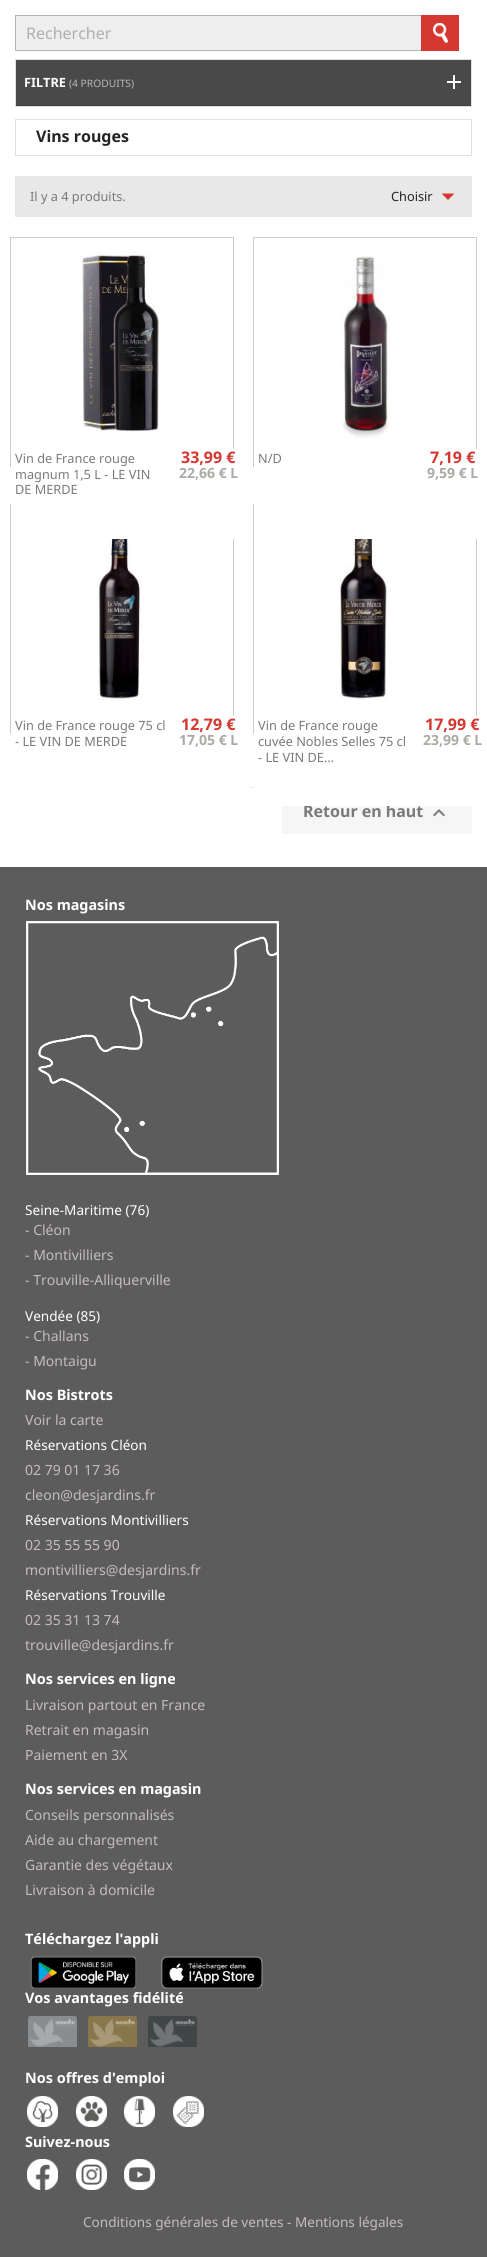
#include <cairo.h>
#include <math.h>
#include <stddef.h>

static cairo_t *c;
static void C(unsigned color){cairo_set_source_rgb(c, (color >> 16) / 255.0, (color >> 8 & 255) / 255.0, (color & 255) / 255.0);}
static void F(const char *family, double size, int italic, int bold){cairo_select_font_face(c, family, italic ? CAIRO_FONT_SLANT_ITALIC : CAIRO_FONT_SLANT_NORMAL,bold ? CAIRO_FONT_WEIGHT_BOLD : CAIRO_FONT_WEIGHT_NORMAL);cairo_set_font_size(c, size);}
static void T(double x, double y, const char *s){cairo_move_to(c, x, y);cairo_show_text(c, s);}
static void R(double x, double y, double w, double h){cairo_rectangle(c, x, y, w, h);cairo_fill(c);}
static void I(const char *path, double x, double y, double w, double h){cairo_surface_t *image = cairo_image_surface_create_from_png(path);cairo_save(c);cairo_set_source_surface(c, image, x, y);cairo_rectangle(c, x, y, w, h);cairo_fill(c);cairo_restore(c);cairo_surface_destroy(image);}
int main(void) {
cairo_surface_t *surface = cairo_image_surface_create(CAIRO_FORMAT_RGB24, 487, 2257);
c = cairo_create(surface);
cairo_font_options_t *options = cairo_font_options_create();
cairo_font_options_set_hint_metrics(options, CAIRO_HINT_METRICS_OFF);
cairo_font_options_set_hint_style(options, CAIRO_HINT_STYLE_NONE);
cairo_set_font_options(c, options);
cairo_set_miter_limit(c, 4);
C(0xffffff);
cairo_paint(c);
C(0xeeeeee);
cairo_rectangle(c,15.5,15.5,406,35);
cairo_fill_preserve(c);
C(0xb3b3b3);
cairo_set_line_width(c,1);
cairo_stroke(c);
F("Noto Sans",16,0,0);
C(0xafafaf);
T(26,39,"Rechercher");
C(0xd53731);
R(421,15,38,36);
I("1.png",433,23,15,20);
cairo_rectangle(c,15.5,59.5,456,47);
C(0xdfdfdf);
cairo_stroke(c);
C(0x4a4949);
R(16,60,455,45);
C(0x414040);
R(16,105,455,1);
F("Noto Sans",12.75,0,1);
C(0xffffff);
T(24,87,"FILTRE");
F("Noto Sans",10.25,0,0);
C(0xb7b6b6);
T(69,87,"(4 PRODUITS)");
I("2.png",447,75,14,14);
cairo_rectangle(c,15.5,119.5,456,36);
C(0xdfdfdf);
cairo_stroke(c);
F("Noto Sans",16,0,1);
C(0x232323);
T(36,142,"Vins rouges");
C(0xe8e8e8);
R(15,176,457,41);
F("Noto Sans",12.75,0,0);
C(0x7a7a7a);
T(30,201,"Il y a 4 produits.");
C(0x232323);
T(391,201,"Choisir");
C(0xd53731);
cairo_new_path(c);
cairo_move_to(c,441.5,193.5);
cairo_line_to(c,454.5,193.5);
cairo_line_to(c,448,200);
cairo_close_path(c);
cairo_fill(c);
cairo_rectangle(c,10.5,237.5,223,229);
C(0xcccccc);
cairo_stroke(c);
I("3.png",82,252,77,181);
cairo_rectangle(c,10.5,504.5,223,229);
cairo_stroke(c);
C(0xffffff);
R(11,449,223,90);
C(0x7a7a7a);
T(15,463,"Vin de France rouge");
T(15,479,"magnum 1,5 L - LE VIN");
T(15,494,"DE MERDE");
F("Noto Sans",16,0,1);
C(0xd53731);
T(181,463,"33,99 €");
F("Noto Sans",14,0,1);
C(0xacaaa6);
T(179,478,"22,66 € L");
cairo_rectangle(c,253.5,237.5,223,229);
C(0xcccccc);
cairo_stroke(c);
I("4.png",342,256,49,182);
cairo_rectangle(c,253.5,504.5,223,229);
cairo_stroke(c);
C(0xffffff);
R(254,449,223,90);
F("Noto Sans",12.75,0,0);
C(0x7a7a7a);
T(258,463,"N/D");
F("Noto Sans",16,0,1);
C(0xd53731);
T(430,463,"7,19 €");
F("Noto Sans",14,0,1);
C(0xacaaa6);
T(427,478,"9,59 € L");
I("5.png",97,539,46,162);
C(0xffffff);
R(11,716,223,18);
F("Noto Sans",12.75,0,0);
C(0x7a7a7a);
T(15,730,"Vin de France rouge 75 cl");
T(15,746,"- LE VIN DE MERDE");
F("Noto Sans",16,0,1);
C(0xd53731);
T(181,730,"12,79 €");
F("Noto Sans",14,0,1);
C(0xacaaa6);
T(179,745,"17,05 € L");
I("6.png",339,539,48,161);
C(0xf6f6f6);
R(282,806,190,28);
F("Noto Sans",16,0,1);
C(0x7a7a7a);
T(303,817,"Retour en haut");
C(0xffffff);
R(254,716,223,90);
F("Noto Sans",12.75,0,0);
C(0x7a7a7a);
T(258,730,"Vin de France rouge");
T(258,746,"cuvée Nobles Selles 75 cl");
T(258,762,"- LE VIN DE...");
F("Noto Sans",16,0,1);
C(0xd53731);
T(425,730,"17,99 €");
F("Noto Sans",14,0,1);
C(0xacaaa6);
T(423,745,"23,99 € L");
C(0xe8e8e8);
R(251,787,3,1);
I("7.png",433,809,12,8);
C(0x5d5c5c);
R(0,867,487,1390);
F("Noto Sans",14.4,0,1);
C(0xffffff);
T(25,910,"Nos magasins");
I("8.png",26,921,253,254);
F("Noto Sans",13.6,0,0);
T(25,1215,"Seine-Maritime (76)");
F("Noto Sans",14,0,0);
C(0xc4bcbc);
T(25,1235,"- Cléon");
T(25,1260,"- Montivilliers");
T(25,1285,"- Trouville-Alliquerville");
F("Noto Sans",13.6,0,0);
C(0xffffff);
T(25,1321,"Vendée (85)");
F("Noto Sans",14,0,0);
C(0xc4bcbc);
T(25,1341,"- Challans");
T(25,1366,"- Montaigu");
F("Noto Sans",14.4,0,1);
C(0xffffff);
T(25,1400,"Nos Bistrots");
F("Noto Sans",14,0,0);
C(0xc4bcbc);
T(25,1425,"Voir la carte");
F("Noto Sans",13.6,0,0);
C(0xffffff);
T(25,1450,"Réservations Cléon");
F("Noto Sans",14,0,0);
C(0xc4bcbc);
T(25,1475,"02 79 01 17 36");
T(25,1500,"cleon@desjardins.fr");
F("Noto Sans",13.6,0,0);
C(0xffffff);
T(25,1525,"Réservations Montivilliers");
F("Noto Sans",14,0,0);
C(0xc4bcbc);
T(25,1550,"02 35 55 55 90");
T(25,1575,"montivilliers@desjardins.fr");
F("Noto Sans",13.6,0,0);
C(0xffffff);
T(25,1600,"Réservations Trouville");
F("Noto Sans",14,0,0);
C(0xc4bcbc);
T(25,1625,"02 35 31 13 74");
T(25,1650,"trouville@desjardins.fr");
F("Noto Sans",14.4,0,1);
C(0xffffff);
T(25,1684,"Nos services en ligne");
F("Noto Sans",14,0,0);
C(0xc4bcbc);
T(25,1710,"Livraison partout en France");
T(25,1735,"Retrait en magasin");
T(25,1760,"Paiement en 3X");
F("Noto Sans",14.4,0,1);
C(0xffffff);
T(25,1794,"Nos services en magasin");
F("Noto Sans",14,0,0);
C(0xc4bcbc);
T(25,1820,"Conseils personnalisés");
T(25,1845,"Aide au chargement");
T(25,1870,"Garantie des végétaux");
T(25,1895,"Livraison à domicile");
F("Noto Sans",14.4,0,1);
C(0xffffff);
T(25,1944,"Téléchargez l'appli");
I("9.png",30,1956,107,33);
I("10.png",161,1956,102,33);
T(25,2003,"Vos avantages fidélité");
I("11.png",28,2016,49,31);
I("12.png",88,2016,49,31);
I("13.png",148,2016,49,31);
T(25,2083,"Nos offres d'emploi");
I("14.png",27,2096,31,31);
I("15.png",76,2096,31,31);
I("16.png",124,2096,31,31);
I("17.png",173,2096,31,31);
T(25,2147,"Suivez-nous");
I("18.png",27,2159,31,31);
I("19.png",76,2159,31,31);
I("20.png",124,2159,31,31);
F("Noto Sans",13.6,0,0);
C(0xc4bcbc);
T(83,2227,"Conditions générales de ventes - Mentions légales");
cairo_surface_write_to_png(surface, "o.png");
cairo_font_options_destroy(options);
cairo_destroy(c);
cairo_surface_destroy(surface);
return 0;
}
